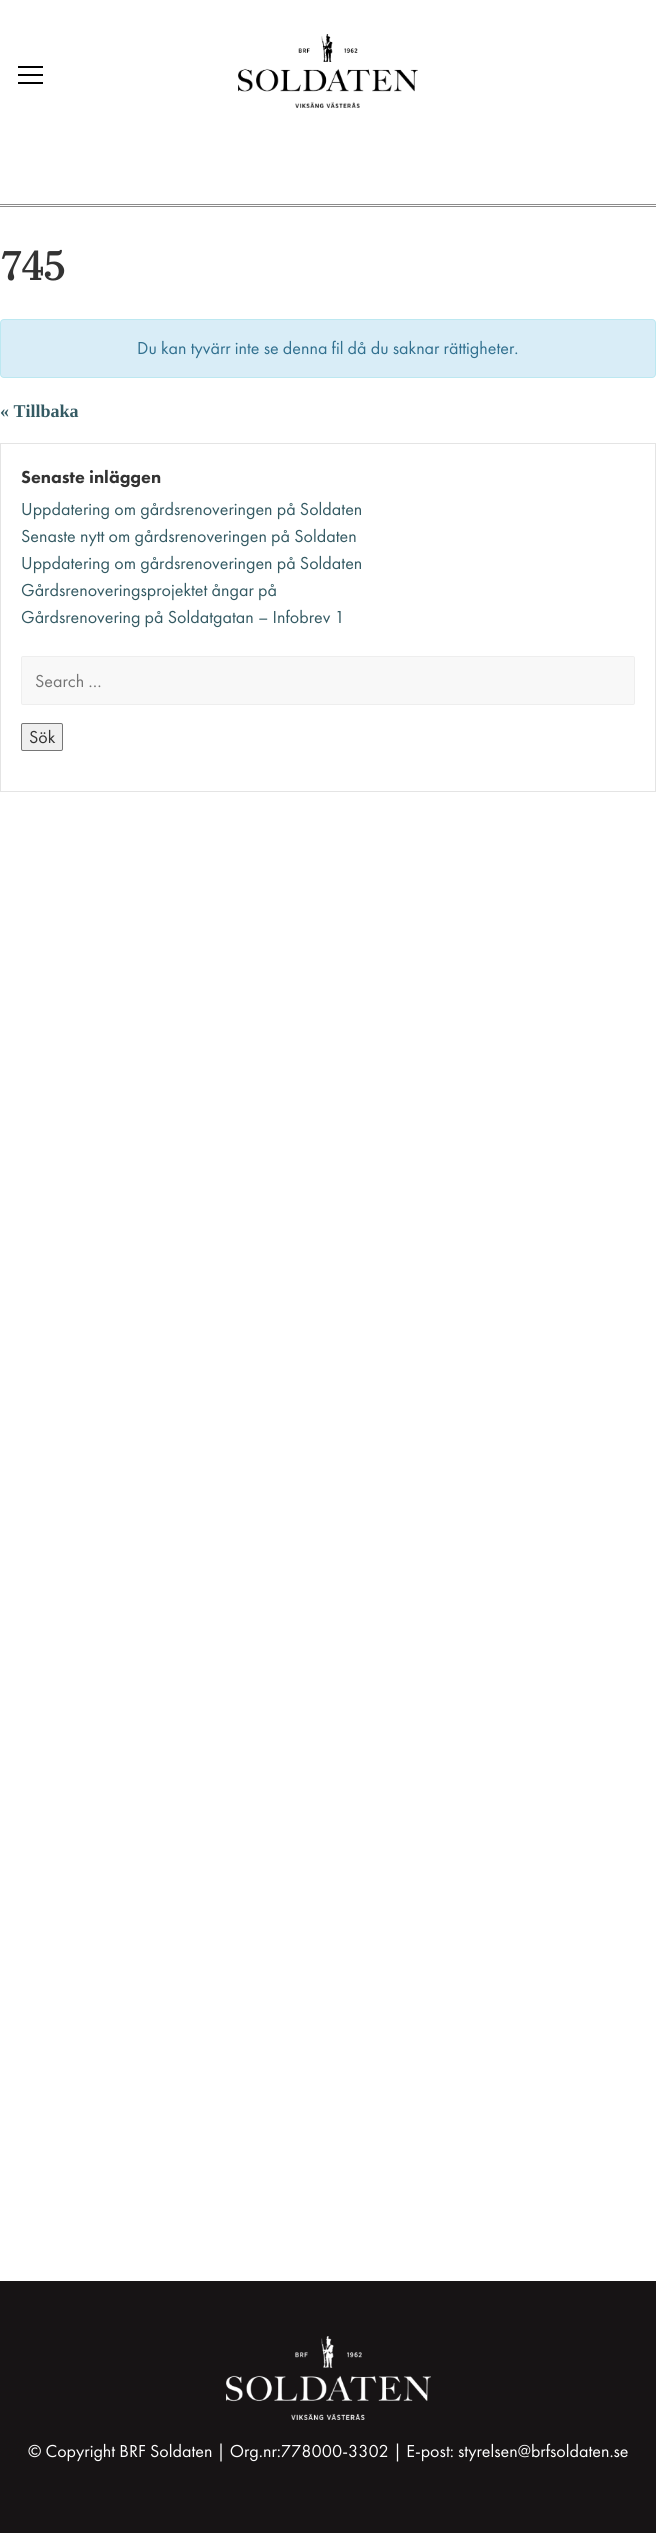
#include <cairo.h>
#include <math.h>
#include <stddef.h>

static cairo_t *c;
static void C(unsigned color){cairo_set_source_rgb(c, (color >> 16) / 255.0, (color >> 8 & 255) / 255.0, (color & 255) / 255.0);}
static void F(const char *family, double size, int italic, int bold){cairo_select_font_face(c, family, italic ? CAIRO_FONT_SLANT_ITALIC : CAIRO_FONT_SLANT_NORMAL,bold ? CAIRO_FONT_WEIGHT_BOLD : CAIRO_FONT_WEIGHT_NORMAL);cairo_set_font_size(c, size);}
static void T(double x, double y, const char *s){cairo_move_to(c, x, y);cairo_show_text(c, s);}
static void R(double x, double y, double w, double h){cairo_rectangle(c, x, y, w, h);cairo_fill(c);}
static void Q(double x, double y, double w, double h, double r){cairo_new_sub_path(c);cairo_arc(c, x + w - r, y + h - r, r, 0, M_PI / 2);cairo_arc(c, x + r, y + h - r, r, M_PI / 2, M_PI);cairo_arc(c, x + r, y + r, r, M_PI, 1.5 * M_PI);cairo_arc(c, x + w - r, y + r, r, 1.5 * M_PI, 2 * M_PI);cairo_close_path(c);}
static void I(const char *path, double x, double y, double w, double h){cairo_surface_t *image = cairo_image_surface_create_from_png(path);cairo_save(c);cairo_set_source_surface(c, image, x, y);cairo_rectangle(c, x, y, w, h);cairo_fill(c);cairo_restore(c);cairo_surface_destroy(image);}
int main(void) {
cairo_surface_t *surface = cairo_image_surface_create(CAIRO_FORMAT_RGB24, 656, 2533);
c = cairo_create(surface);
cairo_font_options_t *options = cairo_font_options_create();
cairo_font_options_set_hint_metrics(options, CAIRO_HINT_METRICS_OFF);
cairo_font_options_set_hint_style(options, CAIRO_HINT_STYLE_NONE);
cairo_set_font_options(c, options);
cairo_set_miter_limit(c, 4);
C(0xffffff);
cairo_paint(c);
C(0x000000);
R(18,74,25,2);
R(18,66,25,2);
R(18,82,25,2);
I("1.png",238,34,180,74);
C(0x8c8b8b);
R(0,204,656,1);
R(0,206,656,1);
F("Bodoni",43,0,1);
C(0x333333);
T(0,280,"745");
C(0xd9edf7);
Q(.5,319.5,655,58,3.5);
cairo_fill_preserve(c);
C(0xbce8f1);
cairo_set_line_width(c,1);
cairo_stroke(c);
F("Futura PT",18,0,0);
C(0x31708f);
T(137,354,"Du kan tyvärr inte se denna fil då du saknar rättigheter.");
F("Liberation Serif",18,0,1);
C(0x345a63);
T(0,417,"« Tillbaka");
cairo_rectangle(c,.5,443.5,655,348);
C(0xe4e4e4);
cairo_stroke(c);
F("Futura PT Black",18,0,0);
C(0x333333);
T(21,483,"Senaste inläggen");
F("Futura PT",18,0,0);
C(0x345a63);
T(21,515,"Uppdatering om gårdsrenoveringen på Soldaten");
T(21,542,"Senaste nytt om gårdsrenoveringen på Soldaten");
T(21,569,"Uppdatering om gårdsrenoveringen på Soldaten");
T(21,596,"Gårdsrenoveringsprojektet ångar på");
T(21,623,"Gårdsrenovering på Soldatgatan – Infobrev 1");
C(0xf8f8f8);
Q(21.5,656.5,613,48,1.5);
cairo_fill_preserve(c);
C(0xeeeeee);
cairo_stroke(c);
C(0x757575);
T(35,687,"Search …");
C(0xefefef);
Q(21.5,723.5,41,27,1.5);
cairo_fill_preserve(c);
C(0x767676);
cairo_stroke(c);
C(0x333333);
T(29,743,"Sök");
C(0x171415);
R(0,2281,656,252);
I("2.png",226,2336,205,84);
C(0xffffff);
T(28,2457,"© Copyright BRF Soldaten | Org.nr:778000-3302 | E-post: styrelsen@brfsoldaten.se");
cairo_surface_write_to_png(surface, "o.png");
cairo_font_options_destroy(options);
cairo_destroy(c);
cairo_surface_destroy(surface);
return 0;
}
